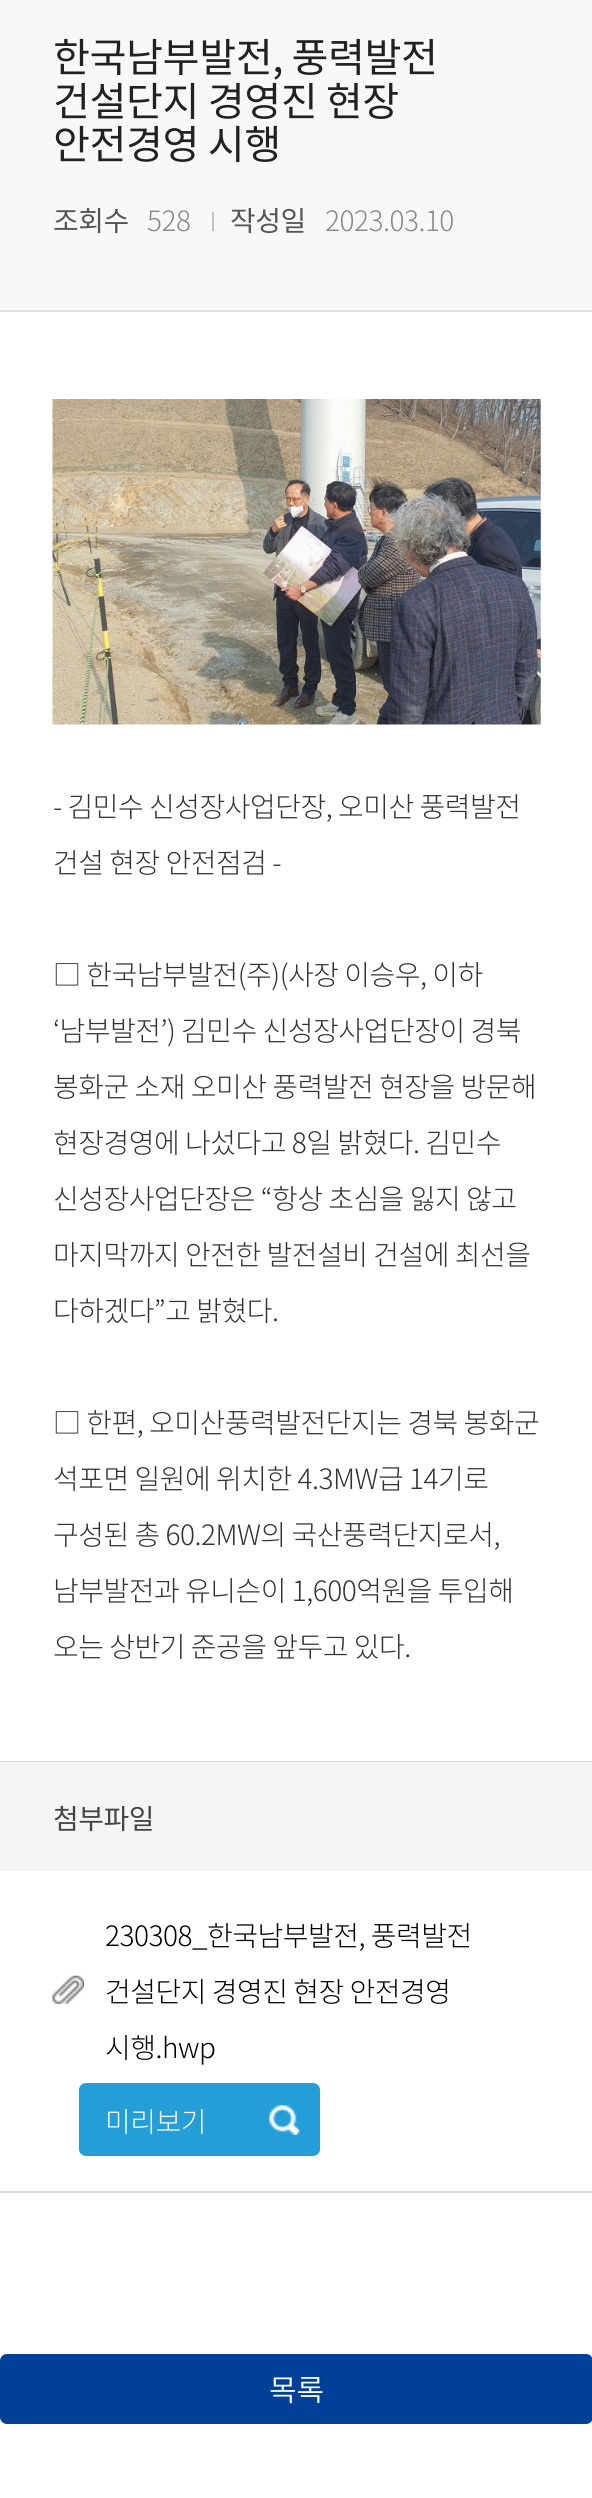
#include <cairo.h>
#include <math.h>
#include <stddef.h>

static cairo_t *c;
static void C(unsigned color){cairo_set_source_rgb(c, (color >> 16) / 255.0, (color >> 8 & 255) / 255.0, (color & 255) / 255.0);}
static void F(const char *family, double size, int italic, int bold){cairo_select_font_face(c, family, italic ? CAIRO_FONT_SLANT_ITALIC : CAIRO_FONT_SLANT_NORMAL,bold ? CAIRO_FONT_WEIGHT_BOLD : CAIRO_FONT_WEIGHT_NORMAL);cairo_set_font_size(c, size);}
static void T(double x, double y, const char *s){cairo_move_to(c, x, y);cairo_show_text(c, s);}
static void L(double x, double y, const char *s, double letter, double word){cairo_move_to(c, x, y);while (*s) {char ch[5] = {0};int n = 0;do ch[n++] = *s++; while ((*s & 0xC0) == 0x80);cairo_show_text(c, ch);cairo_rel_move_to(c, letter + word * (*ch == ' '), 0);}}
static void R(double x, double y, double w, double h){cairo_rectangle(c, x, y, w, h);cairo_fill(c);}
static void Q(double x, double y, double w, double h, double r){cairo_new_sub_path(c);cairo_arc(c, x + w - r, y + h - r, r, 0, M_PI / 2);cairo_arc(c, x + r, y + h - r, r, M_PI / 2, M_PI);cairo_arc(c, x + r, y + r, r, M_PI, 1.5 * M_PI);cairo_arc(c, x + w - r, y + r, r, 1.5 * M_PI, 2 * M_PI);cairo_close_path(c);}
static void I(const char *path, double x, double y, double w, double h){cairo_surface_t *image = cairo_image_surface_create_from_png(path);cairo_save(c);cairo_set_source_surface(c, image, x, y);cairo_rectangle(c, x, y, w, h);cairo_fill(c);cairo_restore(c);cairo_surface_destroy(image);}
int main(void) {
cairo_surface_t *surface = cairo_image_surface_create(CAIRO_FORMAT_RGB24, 592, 2498);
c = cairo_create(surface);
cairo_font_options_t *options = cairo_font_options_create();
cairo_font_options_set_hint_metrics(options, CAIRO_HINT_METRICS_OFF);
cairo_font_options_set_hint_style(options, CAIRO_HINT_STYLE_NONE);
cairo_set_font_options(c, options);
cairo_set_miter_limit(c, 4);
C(0xffffff);
cairo_paint(c);
C(0xf8f8f8);
R(0,0,592,310);
F("Noto Sans KR",40.25,0,0);
C(0x212121);
L(53,72,"한국남부발전, 풍력발전",-.5,0);
L(53,116,"건설단지 경영진 현장",-.5,0);
L(53,159,"안전경영 시행",-.5,0);
C(0xdfdfdf);
R(0,310,592,2);
F("Noto Sans KR",28,0,0);
C(0x555555);
L(53,231,"조회수",-.5,0);
F("Noto Sans KR Light",28,0,0);
C(0x888888);
L(147,231,"528",-.5,0);
C(0xc3c3c3);
R(212,212,2,19);
F("Noto Sans KR",28,0,0);
C(0x555555);
L(230,231,"작성일",-.5,0);
F("Noto Sans KR Light",28,0,0);
C(0x888888);
L(325,231,"2023.03.10",-.5,0);
I("1.png",52,399,489,326);
C(0x333333);
L(53,817,"- 김민수 신성장사업단장, 오미산 풍력발전",-.5,0);
L(53,873,"건설 현장 안전점검 -",-.5,0);
L(53,985,"□ 한국남부발전(주)(사장 이승우, 이하",-.5,0);
L(53,1041,"‘남부발전’) 김민수 신성장사업단장이 경북",-.5,0);
L(53,1097,"봉화군 소재 오미산 풍력발전 현장을 방문해",-.5,0);
L(53,1153,"현장경영에 나섰다고 8일 밝혔다. 김민수",-.5,0);
L(53,1209,"신성장사업단장은 “항상 초심을 잃지 않고",-.5,0);
L(53,1265,"마지막까지 안전한 발전설비 건설에 최선을",-.5,0);
L(53,1321,"다하겠다”고 밝혔다.",-.5,0);
L(53,1433,"□ 한편, 오미산풍력발전단지는 경북 봉화군",-.5,0);
L(53,1489,"석포면 일원에 위치한 4.3MW급 14기로",-.5,0);
L(53,1545,"구성된 총 60.2MW의 국산풍력단지로서,",-.5,0);
L(53,1601,"남부발전과 유니슨이 1,600억원을 투입해",-.5,0);
L(53,1657,"오는 상반기 준공을 앞두고 있다.",-.5,0);
C(0xdcdcdc);
R(0,1761,592,1);
R(0,2191,592,2);
C(0xf5f5f5);
R(0,1762,592,109);
F("Noto Sans KR",28,0,0);
C(0x444444);
L(53,1829,"첨부파일",-.5,0);
I("2.png",52,1975,32,29);
F("Noto Sans KR Light",28,0,0);
C(0x000000);
L(105,1946,"230308_한국남부발전, 풍력발전",-.5,0);
L(105,2002,"건설단지 경영진 현장 안전경영",-.5,0);
L(105,2058,"시행.hwp",-.5,0);
C(0x239ed7);
Q(79,2083,241,73,7);
cairo_fill(c);
I("3.png",269,2105,31,30);
C(0xffffff);
L(105,2132,"미리보기",-.5,0);
C(0x004098);
Q(1,2355,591,68,6);
cairo_fill_preserve(c);
cairo_stroke(c);
F("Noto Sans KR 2 Light",30,0,0);
C(0xffffff);
T(269,2401,"목록");
cairo_surface_write_to_png(surface, "o.png");
cairo_font_options_destroy(options);
cairo_destroy(c);
cairo_surface_destroy(surface);
return 0;
}
